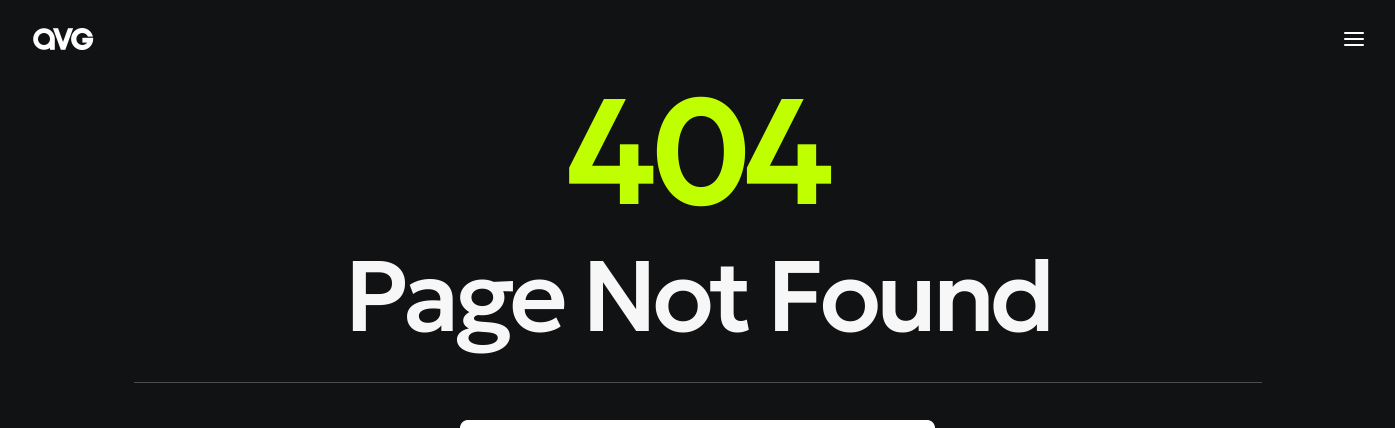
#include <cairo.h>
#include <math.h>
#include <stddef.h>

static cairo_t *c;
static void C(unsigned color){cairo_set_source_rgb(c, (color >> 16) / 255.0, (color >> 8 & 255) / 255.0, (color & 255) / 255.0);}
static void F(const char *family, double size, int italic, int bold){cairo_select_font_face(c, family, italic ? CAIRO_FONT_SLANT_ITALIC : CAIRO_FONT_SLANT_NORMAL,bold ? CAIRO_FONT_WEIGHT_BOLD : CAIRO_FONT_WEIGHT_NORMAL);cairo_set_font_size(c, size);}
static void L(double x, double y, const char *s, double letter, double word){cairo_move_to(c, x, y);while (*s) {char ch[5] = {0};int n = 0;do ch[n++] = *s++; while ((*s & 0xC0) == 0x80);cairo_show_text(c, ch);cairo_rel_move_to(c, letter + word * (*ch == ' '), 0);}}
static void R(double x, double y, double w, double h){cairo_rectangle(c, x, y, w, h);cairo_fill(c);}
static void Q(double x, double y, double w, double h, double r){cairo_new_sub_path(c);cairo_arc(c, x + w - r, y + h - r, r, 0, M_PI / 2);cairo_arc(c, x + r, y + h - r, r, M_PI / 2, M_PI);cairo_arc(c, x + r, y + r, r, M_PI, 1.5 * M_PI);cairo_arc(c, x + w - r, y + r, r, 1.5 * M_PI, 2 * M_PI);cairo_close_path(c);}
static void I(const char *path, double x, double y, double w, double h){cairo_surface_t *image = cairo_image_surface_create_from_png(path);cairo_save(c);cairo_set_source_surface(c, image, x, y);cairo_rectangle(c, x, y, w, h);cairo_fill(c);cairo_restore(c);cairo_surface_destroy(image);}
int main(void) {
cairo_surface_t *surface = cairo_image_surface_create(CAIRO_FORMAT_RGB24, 1395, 428);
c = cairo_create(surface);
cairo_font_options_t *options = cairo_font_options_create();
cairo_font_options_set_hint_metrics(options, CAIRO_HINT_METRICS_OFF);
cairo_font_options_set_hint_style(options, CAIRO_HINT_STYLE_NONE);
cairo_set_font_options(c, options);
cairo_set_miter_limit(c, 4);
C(0x101213);
cairo_paint(c);
I("1.png",33,28,61,22);
C(0xffffff);
Q(1344,38,20,2,1);
cairo_fill(c);
Q(1344,32,20,2,1);
cairo_fill(c);
Q(1344,44,20,2,1);
cairo_fill(c);
F("Geologica SemiBold",150,0,0);
C(0xbfff00);
L(567,204,"404",-7.5,0);
F("Geologica Medium",100,0,0);
C(0xf7f7f7);
L(344,331,"Page Not Found",-5,0);
C(0x4c4d4e);
R(134,382,1128,1);
C(0xffffff);
Q(460.5,420.5,474,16,7.5);
cairo_fill_preserve(c);
cairo_set_line_width(c,1);
cairo_stroke(c);
cairo_surface_write_to_png(surface, "o.png");
cairo_font_options_destroy(options);
cairo_destroy(c);
cairo_surface_destroy(surface);
return 0;
}
